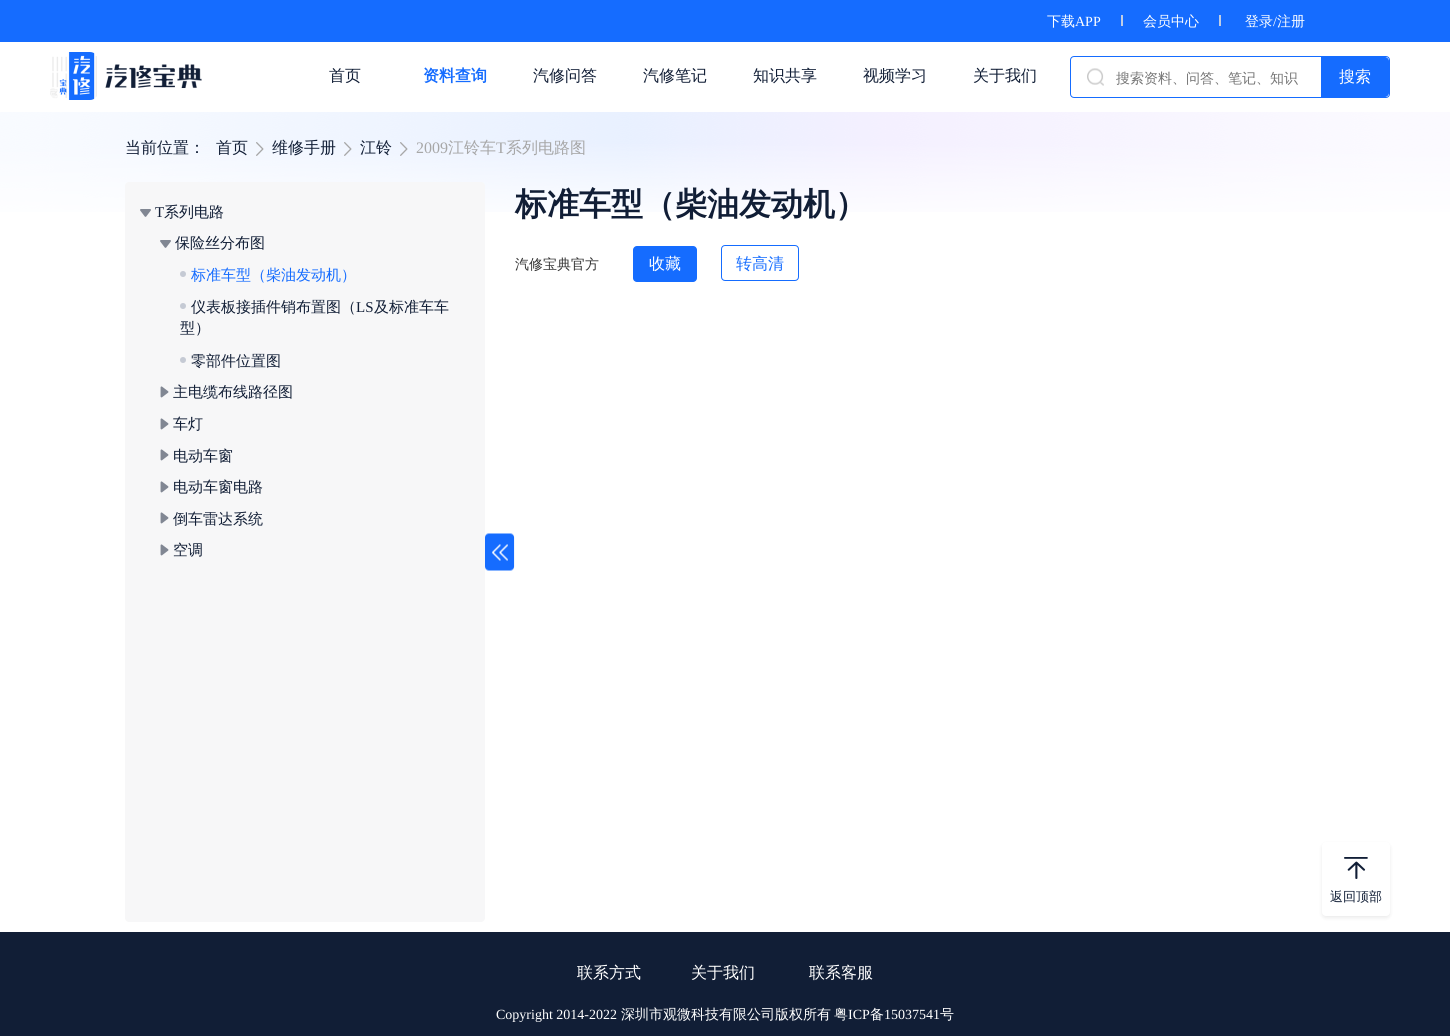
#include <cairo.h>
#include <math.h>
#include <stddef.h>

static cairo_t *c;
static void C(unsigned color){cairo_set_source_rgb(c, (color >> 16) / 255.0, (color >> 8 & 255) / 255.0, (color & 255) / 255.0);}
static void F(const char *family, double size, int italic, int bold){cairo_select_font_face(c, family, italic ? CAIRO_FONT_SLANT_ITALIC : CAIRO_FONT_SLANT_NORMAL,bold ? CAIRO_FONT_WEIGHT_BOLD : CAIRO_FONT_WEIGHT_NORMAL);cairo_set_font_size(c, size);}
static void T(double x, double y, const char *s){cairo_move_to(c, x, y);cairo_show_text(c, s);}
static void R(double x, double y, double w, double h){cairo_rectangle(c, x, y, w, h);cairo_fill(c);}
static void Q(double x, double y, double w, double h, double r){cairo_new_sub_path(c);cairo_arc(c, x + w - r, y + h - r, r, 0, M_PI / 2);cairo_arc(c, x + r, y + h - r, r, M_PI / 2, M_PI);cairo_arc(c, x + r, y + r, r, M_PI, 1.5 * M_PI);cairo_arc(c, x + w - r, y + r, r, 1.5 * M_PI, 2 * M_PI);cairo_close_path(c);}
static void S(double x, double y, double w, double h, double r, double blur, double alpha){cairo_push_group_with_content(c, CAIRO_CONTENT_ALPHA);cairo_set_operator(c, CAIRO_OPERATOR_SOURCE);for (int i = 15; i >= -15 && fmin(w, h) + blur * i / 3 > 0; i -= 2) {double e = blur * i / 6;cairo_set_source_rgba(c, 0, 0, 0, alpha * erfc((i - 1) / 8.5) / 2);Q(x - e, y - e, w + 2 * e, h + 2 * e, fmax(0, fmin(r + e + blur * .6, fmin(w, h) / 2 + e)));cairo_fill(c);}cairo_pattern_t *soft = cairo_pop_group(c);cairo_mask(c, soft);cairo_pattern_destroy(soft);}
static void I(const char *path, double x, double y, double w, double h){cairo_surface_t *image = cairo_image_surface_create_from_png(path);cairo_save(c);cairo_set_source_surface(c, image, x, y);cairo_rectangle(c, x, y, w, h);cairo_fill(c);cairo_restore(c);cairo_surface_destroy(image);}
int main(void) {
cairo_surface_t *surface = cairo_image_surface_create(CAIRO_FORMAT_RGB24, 1450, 1036);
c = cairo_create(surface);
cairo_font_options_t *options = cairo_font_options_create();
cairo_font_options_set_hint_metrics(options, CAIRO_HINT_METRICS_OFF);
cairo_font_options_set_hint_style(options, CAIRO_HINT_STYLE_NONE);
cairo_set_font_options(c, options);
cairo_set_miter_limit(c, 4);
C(0xffffff);
cairo_paint(c);
C(0x156cff);
R(0,0,1450,42);
F("WenQuanYi Zen Hei Medium",14,0,0);
C(0xffffff);
T(1047,26,"下载");
F("Liberation Serif",14,0,0);
T(1075,26,"APP");
C(0xbfcde4);
R(1121,15,2,11);
F("WenQuanYi Zen Hei Medium",14,0,0);
C(0xffffff);
T(1143,26,"会员中心");
C(0xbfcde4);
R(1219,15,2,11);
C(0xffffff);
T(1245,26,"登录");
F("Liberation Serif",14,0,0);
T(1273,26,"/");
F("WenQuanYi Zen Hei Medium",14,0,0);
T(1277,26,"注册");
I("1.png",50,52,152,48);
F("WenQuanYi Zen Hei Medium",16,0,0);
C(0x111e36);
T(329,81,"首页");
F("WenQuanYi Zen Hei",16,0,1);
C(0x156cff);
T(423,81,"资料查询");
F("WenQuanYi Zen Hei Medium",16,0,0);
C(0x111e36);
T(533,81,"汽修问答");
T(643,81,"汽修笔记");
T(753,81,"知识共享");
T(863,81,"视频学习");
T(973,81,"关于我们");
Q(1070.5,56.5,319,41,3.5);
C(0x156cff);
cairo_set_line_width(c,1);
cairo_stroke(c);
I("2.png",1087,68,17,18);
F("WenQuanYi Zen Hei Medium",14,0,0);
C(0x757575);
T(1116,83,"搜索资料、问答、笔记、知识");
C(0x156cff);
cairo_new_path(c);
cairo_move_to(c,1321,57);
cairo_line_to(c,1385,57);
cairo_curve_to(c,1387,57,1389,59,1389,61);
cairo_line_to(c,1389,93);
cairo_curve_to(c,1389,95,1387,97,1385,97);
cairo_line_to(c,1321,97);
cairo_close_path(c);
cairo_fill(c);
F("WenQuanYi Zen Hei Medium",16,0,0);
C(0xffffff);
T(1339,82,"搜索");
I("3.png",0,112,1450,100);
C(0x111e36);
T(125,153,"当前位置：");
T(216,153,"首页");
I("4.png",256,142,8,14);
T(272,153,"维修手册");
I("5.png",344,142,8,14);
T(360,153,"江铃");
I("6.png",400,142,8,14);
F("Liberation Serif",16,0,0);
C(0xa7a7a7);
T(416,153,"2009");
F("WenQuanYi Zen Hei Medium",16,0,0);
T(448,153,"江铃车");
F("Liberation Serif",16,0,0);
T(496,153,"T");
F("WenQuanYi Zen Hei Medium",16,0,0);
T(506,153,"系列电路图");
C(0xf7f7f8);
Q(125,182,360,740,4);
cairo_fill(c);
I("7.png",140,209,11,8);
F("Liberation Serif",15,0,0);
C(0x111e36);
T(155,217,"T");
F("WenQuanYi Zen Hei Medium",15,0,0);
T(164,217,"系列电路");
I("7.png",160,240,11,8);
T(175,248,"保险丝分布图");
C(0xc5cad4);
cairo_new_path(c);
cairo_arc(c,183,274,3,0,2 * M_PI);
cairo_fill(c);
C(0x156cff);
T(191,280,"标准车型（柴油发动机）");
C(0xc5cad4);
cairo_new_path(c);
cairo_arc(c,183,306,3,0,2 * M_PI);
cairo_fill(c);
C(0x111e36);
T(191,312,"仪表板接插件销布置图（");
F("Liberation Serif",15,0,0);
T(356,312,"LS");
F("WenQuanYi Zen Hei Medium",15,0,0);
T(374,312,"及标准车车");
T(180,333,"型）");
C(0xc5cad4);
cairo_new_path(c);
cairo_arc(c,183,360,3,0,2 * M_PI);
cairo_fill(c);
C(0x111e36);
T(191,366,"零部件位置图");
I("8.png",160,386,9,12);
T(173,397,"主电缆布线路径图");
I("8.png",160,418,9,12);
T(173,429,"车灯");
I("8.png",160,449,9,12);
T(173,461,"电动车窗");
I("8.png",160,481,9,12);
T(173,492,"电动车窗电路");
I("8.png",160,512,9,12);
T(173,524,"倒车雷达系统");
I("8.png",160,544,9,12);
T(173,555,"空调");
I("9.png",485,533,30,38);
F("WenQuanYi Zen Hei",32,0,1);
T(515,215,"标准车型（柴油发动机）");
F("WenQuanYi Zen Hei Medium",14,0,0);
C(0x333333);
T(515,269,"汽修宝典官方");
C(0x156cff);
Q(633,246,64,36,4);
cairo_fill(c);
F("WenQuanYi Zen Hei Medium",16,0,0);
C(0xffffff);
T(649,269,"收藏");
Q(721.5,245.5,77,35,3.5);
C(0x156cff);
cairo_stroke(c);
T(736,269,"转高清");
C(0x000000);
S(1322,844,68,74,4,2,.08);
C(0xffffff);
Q(1322,842,68,74,4);
cairo_fill(c);
I("10.png",1344,857,24,22);
F("WenQuanYi Zen Hei Medium",13,0,0);
C(0x111e36);
T(1330,901,"返回顶部");
R(0,932,1450,104);
F("WenQuanYi Zen Hei Medium",16,0,0);
C(0xffffff);
T(577,978,"联系方式");
T(691,978,"关于我们");
T(809,978,"联系客服");
F("Liberation Serif",14,0,0);
T(496,1019,"Copyright 2014-2022");
F("WenQuanYi Zen Hei Medium",14,0,0);
T(621,1019,"深圳市观微科技有限公司版权所有");
T(834,1019,"粤");
F("Liberation Serif",14,0,0);
T(848,1019,"ICP");
F("WenQuanYi Zen Hei Medium",14,0,0);
T(870,1019,"备");
F("Liberation Serif",14,0,0);
T(884,1019,"15037541");
F("WenQuanYi Zen Hei Medium",14,0,0);
T(940,1019,"号");
cairo_surface_write_to_png(surface, "o.png");
cairo_font_options_destroy(options);
cairo_destroy(c);
cairo_surface_destroy(surface);
return 0;
}
